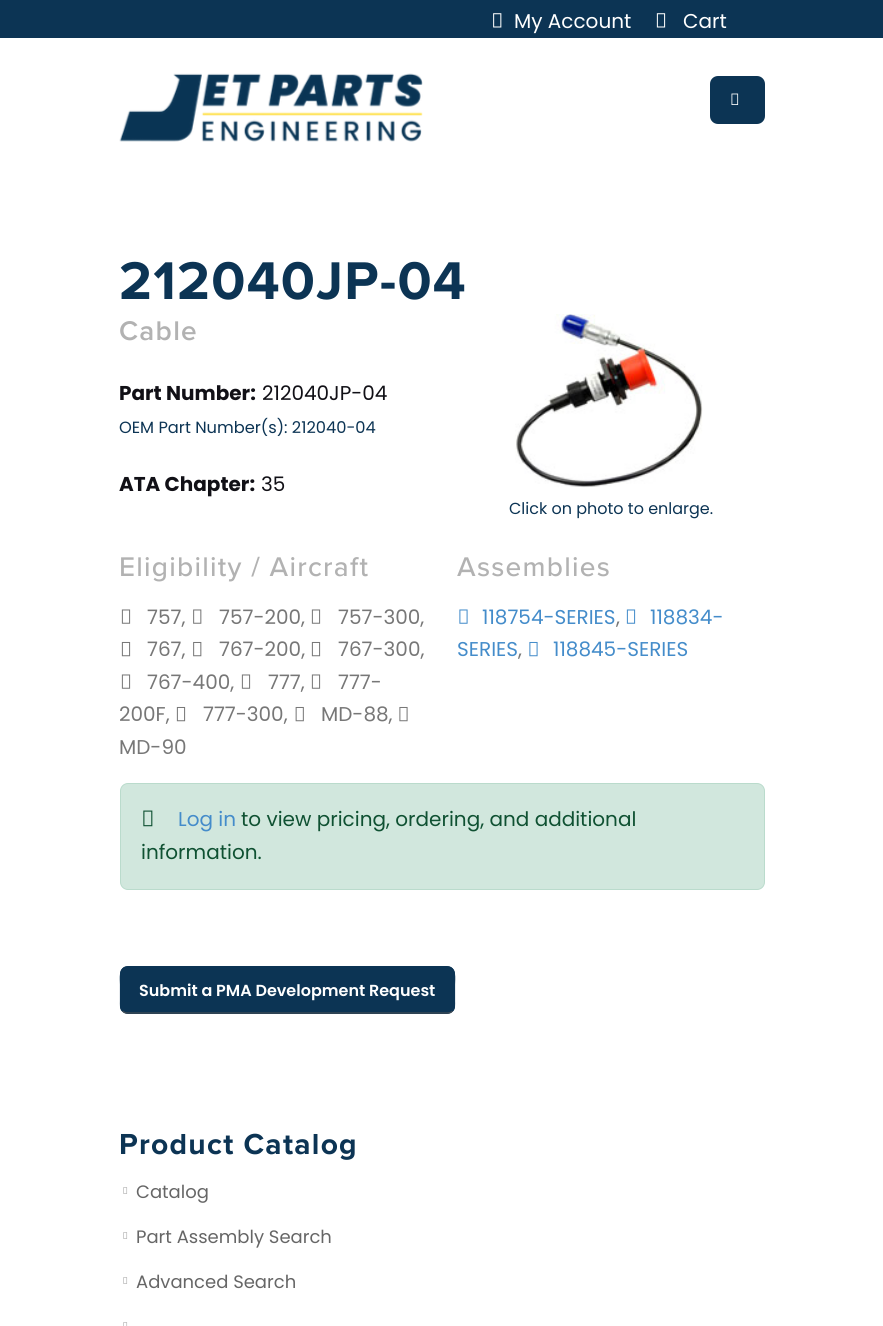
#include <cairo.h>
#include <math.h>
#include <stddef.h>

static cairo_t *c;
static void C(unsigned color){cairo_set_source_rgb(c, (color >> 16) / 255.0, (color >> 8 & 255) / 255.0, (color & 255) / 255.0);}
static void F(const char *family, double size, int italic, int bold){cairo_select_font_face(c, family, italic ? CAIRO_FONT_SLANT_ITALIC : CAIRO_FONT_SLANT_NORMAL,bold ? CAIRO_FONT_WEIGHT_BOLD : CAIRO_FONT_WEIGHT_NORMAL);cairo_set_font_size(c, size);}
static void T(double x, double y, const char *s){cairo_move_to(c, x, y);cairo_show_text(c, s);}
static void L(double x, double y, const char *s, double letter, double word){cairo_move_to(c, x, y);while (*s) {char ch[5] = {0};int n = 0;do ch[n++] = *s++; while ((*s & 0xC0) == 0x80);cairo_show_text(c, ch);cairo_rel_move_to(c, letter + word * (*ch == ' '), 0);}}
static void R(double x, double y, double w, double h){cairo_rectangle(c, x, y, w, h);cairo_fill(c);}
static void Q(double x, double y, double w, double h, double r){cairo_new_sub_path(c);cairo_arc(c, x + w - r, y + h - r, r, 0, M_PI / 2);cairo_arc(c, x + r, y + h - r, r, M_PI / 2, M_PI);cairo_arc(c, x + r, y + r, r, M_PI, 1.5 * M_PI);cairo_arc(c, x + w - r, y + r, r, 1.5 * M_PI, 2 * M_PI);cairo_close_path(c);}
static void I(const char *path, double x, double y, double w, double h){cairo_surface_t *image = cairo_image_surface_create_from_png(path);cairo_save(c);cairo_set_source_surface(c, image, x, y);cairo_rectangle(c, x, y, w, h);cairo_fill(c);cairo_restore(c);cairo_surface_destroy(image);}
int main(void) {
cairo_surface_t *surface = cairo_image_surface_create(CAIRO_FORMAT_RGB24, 883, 1326);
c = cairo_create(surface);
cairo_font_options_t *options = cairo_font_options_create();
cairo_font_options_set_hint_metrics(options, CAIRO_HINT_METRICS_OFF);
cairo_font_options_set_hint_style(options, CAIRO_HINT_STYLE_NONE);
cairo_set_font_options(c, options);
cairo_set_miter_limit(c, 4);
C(0xffffff);
cairo_paint(c);
C(0x0c3454);
R(0,0,883,38);
I("1.png",493,13,9,15);
F("Poppins",20,0,0);
C(0xffffff);
T(514,28,"My Account");
I("2.png",656,13,10,15);
T(683,28,"Cart");
I("3.png",119,73,304,69);
C(0x0c3454);
Q(710,76,55,48,8);
cairo_fill(c);
I("4.png",731,93,8,12);
F("Proxima Nova",55,0,1);
L(119,299,"212040JP-04",1.25,0);
F("Proxima Nova SemiBold",28,0,0);
C(0xb2b2b2);
L(119,340,"Cable",1.25,0);
F("Poppins",20,0,1);
C(0x111016);
T(119,400,"Part Number:");
F("Poppins",20,0,0);
T(262,400,"212040JP-04");
F("Poppins",16.25,0,0);
C(0x0c3454);
T(119,433,"OEM Part Number(s): 212040-04");
F("Poppins",20,0,1);
C(0x111016);
T(119,491,"ATA Chapter:");
F("Poppins",20,0,0);
T(261,491,"35");
I("5.png",515,314,188,174);
F("Poppins",16,0,0);
C(0x0c3454);
T(509,514,"Click on photo to enlarge.");
F("Proxima Nova Medium",28,0,0);
C(0xb2b2b2);
L(119,576,"Eligibility / Aircraft",1.25,0);
I("6.png",121,609,10,15);
F("Poppins",20,0,0);
C(0x777777);
T(147,624,"757,");
I("7.png",193,609,9,15);
T(219,624,"757-200,");
I("6.png",311,609,10,15);
T(338,624,"757-300,");
I("8.png",121,641,10,16);
T(147,656,"767,");
I("9.png",193,641,9,16);
T(219,656,"767-200,");
I("8.png",311,641,10,16);
T(338,656,"767-300,");
I("6.png",121,674,10,15);
T(147,689,"767-400,");
I("6.png",241,674,10,15);
T(268,689,"777,");
I("6.png",311,674,10,15);
T(338,689,"777-");
T(119,721,"200F,");
I("8.png",176,706,10,16);
T(203,721,"777-300,");
I("10.png",295,706,9,16);
T(321,721,"MD-88,");
I("11.png",399,706,9,16);
T(119,754,"MD-90");
F("Proxima Nova Medium",28,0,0);
C(0xb2b2b2);
L(457,576,"Assemblies",1.25,0);
I("12.png",626,609,10,15);
F("Poppins",20,0,0);
C(0x448cca);
T(650,624,"118834-");
T(457,656,"SERIES");
I("13.png",459,609,9,15);
T(482,624,"118754-SERIES");
C(0x777777);
T(616,624,",");
T(518,656,",");
I("14.png",529,641,9,16);
C(0x448cca);
T(553,656,"118845-SERIES");
C(0xd1e7dd);
Q(120.5,783.5,644,106,7.5);
cairo_fill_preserve(c);
C(0xbadbcc);
cairo_set_line_width(c,1);
cairo_stroke(c);
I("15.png",143,810,10,17);
C(0x448cca);
T(178,826,"Log in");
C(0x0f5132);
T(241,826,"to view pricing, ordering, and additional");
T(141,859,"information.");
C(0x0c3454);
Q(120,966,335,48,8);
cairo_fill(c);
cairo_new_path(c);
cairo_move_to(c,452.5,1011);
cairo_curve_to(c,451,1012.5,449.5,1013,447.5,1013);
cairo_line_to(c,127.5,1013);
cairo_curve_to(c,125.5,1013,124,1012.5,122.5,1011);
C(0x444d54);
cairo_set_line_width(c,1.2);
cairo_stroke(c);
cairo_new_path(c);
cairo_move_to(c,122.5,1011);
cairo_curve_to(c,120,1008.5,120.5,1004.5,120.5,1001);
cairo_line_to(c,120.5,984.5);
cairo_curve_to(c,120.5,979,118.5,967,127.5,967);
cairo_line_to(c,447.5,967);
cairo_curve_to(c,456.5,967,454.5,979,454.5,984.5);
cairo_line_to(c,454.5,1001);
cairo_curve_to(c,454.5,1004.5,455,1008.5,452.5,1011);
C(0x0c3454);
cairo_stroke(c);
F("Poppins SemiBold",16,0,0);
C(0xffffff);
T(139,996,"Submit a PMA Development Request");
F("Proxima Nova",30,0,1);
C(0x0c3454);
L(119,1154,"Product Catalog",1.25,0);
I("16.png",123,1187,5,7);
F("Poppins",18,0,0);
C(0x666666);
T(136,1198,"Catalog");
I("16.png",123,1232,5,7);
T(136,1243,"Part Assembly Search");
I("16.png",123,1277,5,7);
T(136,1288,"Advanced Search");
I("17.png",123,1322,5,4);
cairo_surface_write_to_png(surface, "o.png");
cairo_font_options_destroy(options);
cairo_destroy(c);
cairo_surface_destroy(surface);
return 0;
}
